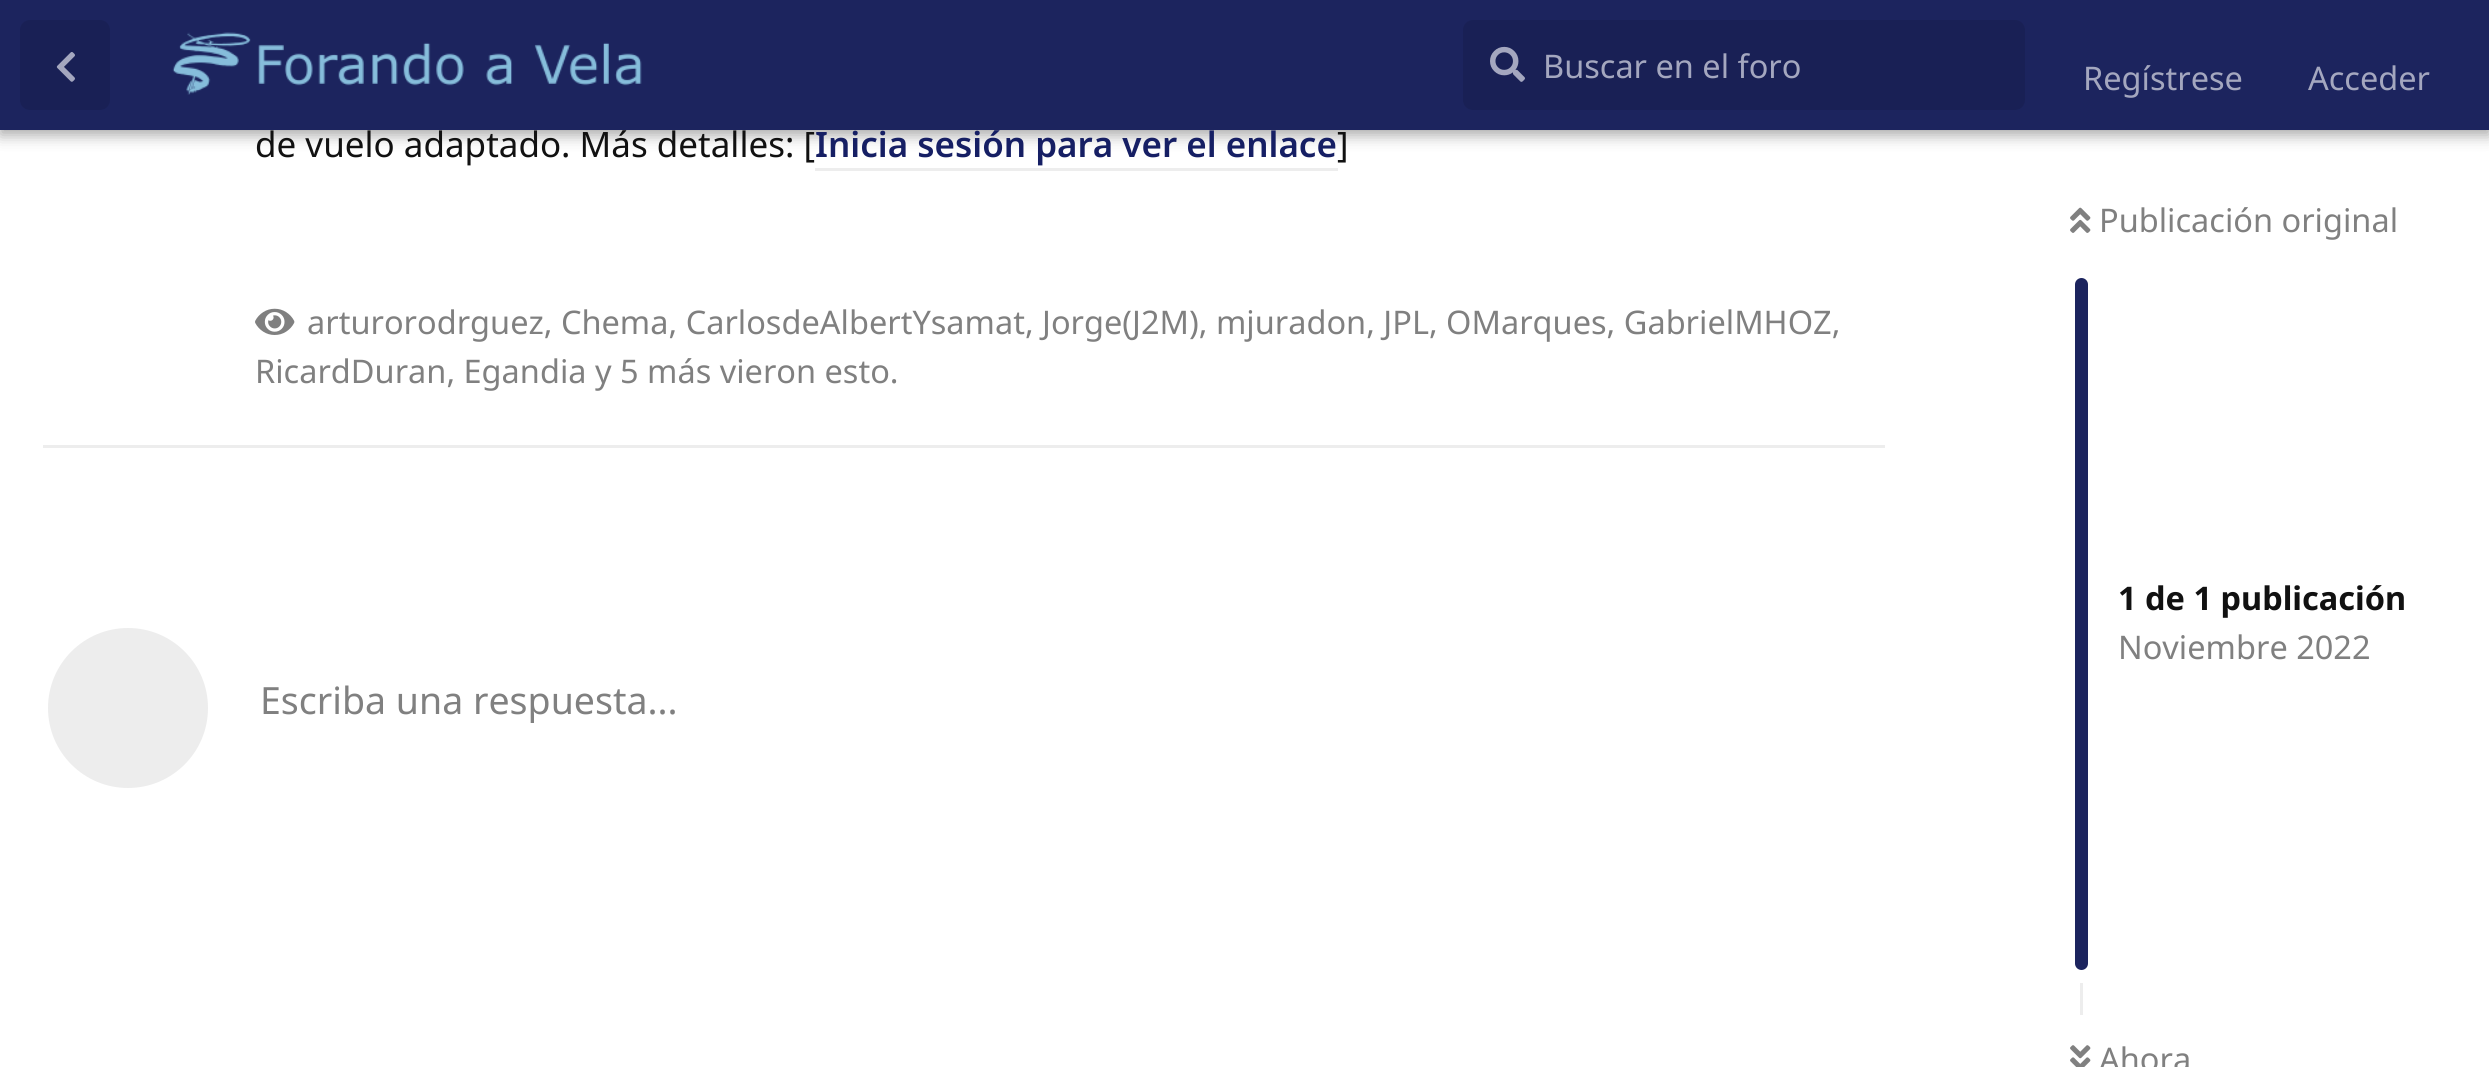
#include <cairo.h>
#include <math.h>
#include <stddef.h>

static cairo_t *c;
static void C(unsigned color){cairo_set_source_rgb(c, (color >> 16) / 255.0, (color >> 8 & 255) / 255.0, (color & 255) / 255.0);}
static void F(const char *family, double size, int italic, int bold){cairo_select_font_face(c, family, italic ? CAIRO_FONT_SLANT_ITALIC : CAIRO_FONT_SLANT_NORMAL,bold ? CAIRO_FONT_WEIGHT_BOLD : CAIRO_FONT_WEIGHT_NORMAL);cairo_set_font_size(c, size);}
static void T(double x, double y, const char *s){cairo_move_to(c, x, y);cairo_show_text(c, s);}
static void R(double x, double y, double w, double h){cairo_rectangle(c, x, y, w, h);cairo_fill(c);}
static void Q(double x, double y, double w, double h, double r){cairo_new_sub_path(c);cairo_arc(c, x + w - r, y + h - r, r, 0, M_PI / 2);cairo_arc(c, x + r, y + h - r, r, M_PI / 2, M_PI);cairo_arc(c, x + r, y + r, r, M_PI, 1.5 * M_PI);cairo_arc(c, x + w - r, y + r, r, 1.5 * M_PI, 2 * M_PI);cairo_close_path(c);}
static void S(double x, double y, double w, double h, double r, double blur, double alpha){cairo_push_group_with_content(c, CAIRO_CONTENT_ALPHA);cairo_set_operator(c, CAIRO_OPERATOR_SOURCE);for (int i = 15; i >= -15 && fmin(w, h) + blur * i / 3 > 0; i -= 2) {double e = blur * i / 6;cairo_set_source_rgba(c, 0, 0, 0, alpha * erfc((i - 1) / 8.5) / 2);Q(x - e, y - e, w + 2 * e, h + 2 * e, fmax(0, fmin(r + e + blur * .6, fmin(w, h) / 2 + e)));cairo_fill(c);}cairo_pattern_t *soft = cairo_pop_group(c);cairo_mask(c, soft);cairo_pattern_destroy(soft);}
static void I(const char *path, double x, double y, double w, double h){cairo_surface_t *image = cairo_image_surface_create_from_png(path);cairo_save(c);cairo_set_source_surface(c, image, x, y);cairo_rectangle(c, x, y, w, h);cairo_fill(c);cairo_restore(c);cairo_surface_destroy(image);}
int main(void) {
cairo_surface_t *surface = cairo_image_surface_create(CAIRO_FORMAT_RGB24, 2489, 1067);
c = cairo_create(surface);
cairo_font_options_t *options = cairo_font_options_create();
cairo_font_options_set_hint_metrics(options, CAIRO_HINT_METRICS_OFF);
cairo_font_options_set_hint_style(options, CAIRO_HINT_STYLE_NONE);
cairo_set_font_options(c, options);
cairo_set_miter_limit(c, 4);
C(0xffffff);
cairo_paint(c);
C(0x000000);
S(0,5,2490,130,0,7.5,.35);
C(0x1c245e);
R(0,0,2489,130);
C(0x192055);
Q(20,20,90,90,10);
cairo_fill(c);
I("1.png",56,52,19,30);
I("2.png",172,32,470,63);
Q(1463,20,562,90,10);
cairo_fill(c);
I("3.png",1490,46,35,36);
F("Noto Sans",32.5,0,0);
C(0xa4a7bf);
T(1543,78,"Buscar en el foro");
T(2083,90,"Regístrese");
T(2308,90,"Acceder");
C(0xededed);
R(43,445,1842,3);
F("Noto Sans",35,0,0);
C(0x111111);
T(255,157,"de vuelo adaptado. Más detalles: [");
F("Noto Sans SemiBold",35,0,0);
C(0x161f64);
T(815,157,"Inicia sesión para ver el enlace");
C(0xededed);
R(815,168,523,3);
F("Noto Sans",35,0,0);
C(0x111111);
T(1337,157,"]");
I("4.png",255,308,40,27);
F("Noto Sans",32.5,0,0);
C(0x808080);
T(307,334,"arturorodrguez, Chema, CarlosdeAlbertYsamat, Jorge(J2M), mjuradon, JPL, OMarques, GabrielMHOZ,");
T(255,383,"RicardDuran, Egandia y 5 más vieron esto.");
C(0xededed);
cairo_new_path(c);
cairo_arc(c,128,708,80,0,2 * M_PI);
cairo_fill(c);
F("Noto Sans",37.5,0,0);
C(0x808080);
T(260,714,"Escriba una respuesta...");
I("5.png",2070,207,21,26);
F("Noto Sans",32.5,0,0);
T(2099,232,"Publicación original");
C(0x1c245e);
Q(2075,278,13,692,6.5);
cairo_fill(c);
F("Noto Sans",32.5,0,1);
C(0x111111);
T(2118,610,"1 de 1 publicación");
F("Noto Sans",32.5,0,0);
C(0x808080);
T(2118,659,"Noviembre 2022");
C(0xededed);
R(2080,983,3,32);
I("6.png",2070,1045,21,22);
C(0x808080);
T(2099,1071,"Ahora");
cairo_surface_write_to_png(surface, "o.png");
cairo_font_options_destroy(options);
cairo_destroy(c);
cairo_surface_destroy(surface);
return 0;
}
